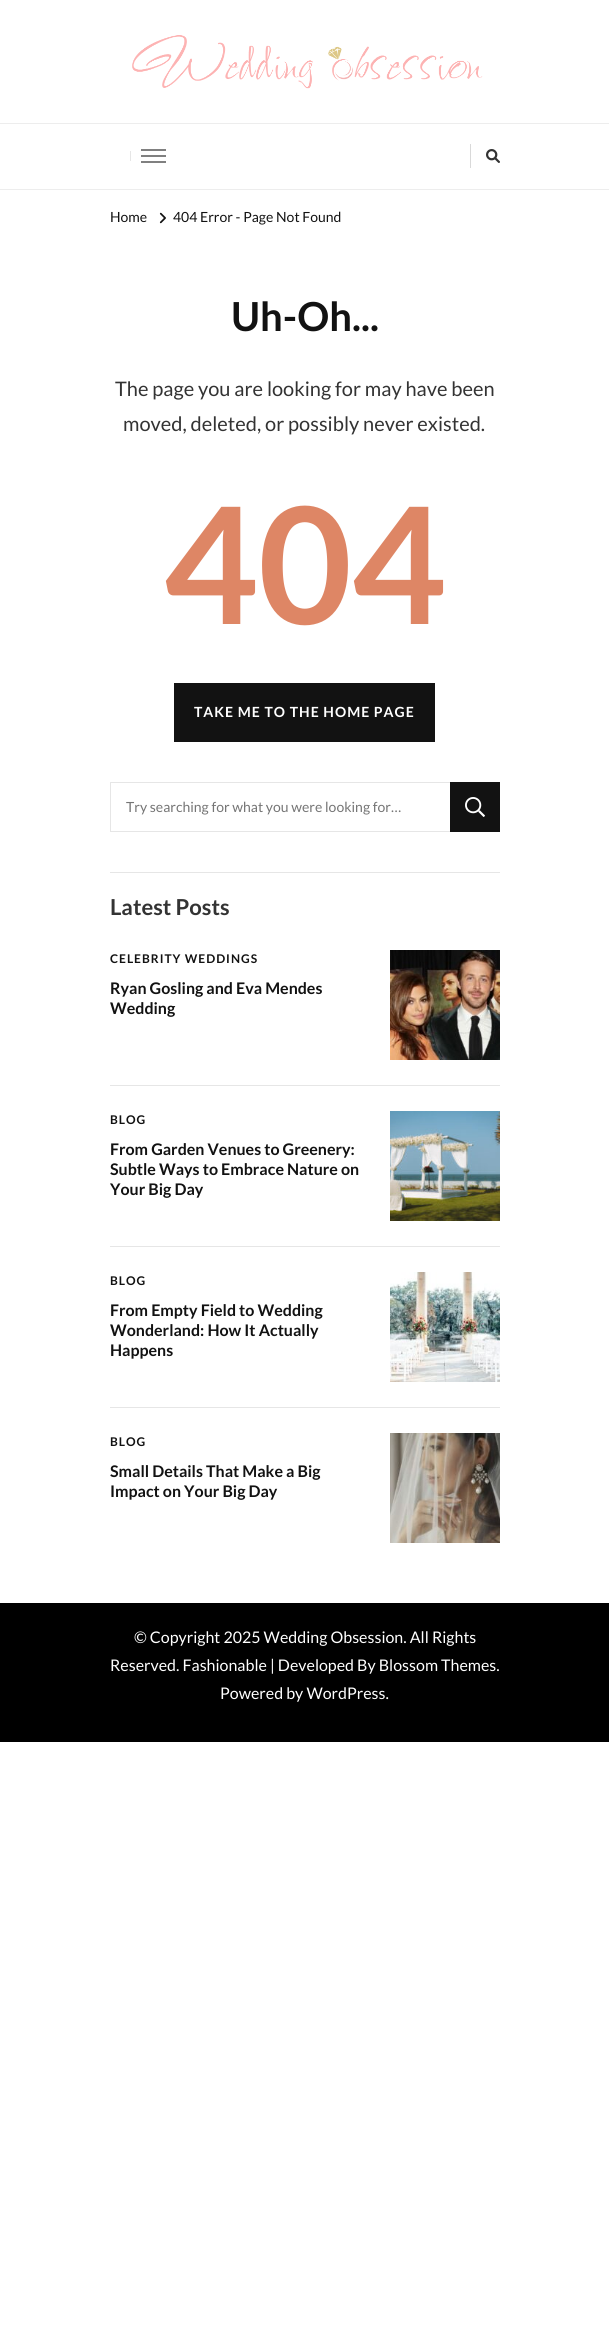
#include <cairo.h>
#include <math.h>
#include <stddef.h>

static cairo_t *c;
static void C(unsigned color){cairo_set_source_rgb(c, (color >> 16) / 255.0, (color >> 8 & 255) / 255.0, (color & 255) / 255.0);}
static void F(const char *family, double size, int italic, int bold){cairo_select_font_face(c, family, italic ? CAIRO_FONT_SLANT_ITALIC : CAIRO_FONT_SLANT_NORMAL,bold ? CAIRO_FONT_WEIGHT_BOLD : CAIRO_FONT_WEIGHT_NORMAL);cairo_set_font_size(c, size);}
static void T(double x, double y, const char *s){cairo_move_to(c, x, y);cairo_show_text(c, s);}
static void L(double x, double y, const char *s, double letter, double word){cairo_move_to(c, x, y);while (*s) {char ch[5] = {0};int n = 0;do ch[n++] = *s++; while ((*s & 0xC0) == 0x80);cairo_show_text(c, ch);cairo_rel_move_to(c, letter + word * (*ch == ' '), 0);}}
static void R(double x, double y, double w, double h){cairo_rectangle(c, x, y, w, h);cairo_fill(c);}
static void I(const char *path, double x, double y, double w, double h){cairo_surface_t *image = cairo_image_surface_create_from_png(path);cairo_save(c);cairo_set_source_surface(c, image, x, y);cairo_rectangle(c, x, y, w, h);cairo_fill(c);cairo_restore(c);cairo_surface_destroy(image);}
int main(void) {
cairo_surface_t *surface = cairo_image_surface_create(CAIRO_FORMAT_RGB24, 609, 2352);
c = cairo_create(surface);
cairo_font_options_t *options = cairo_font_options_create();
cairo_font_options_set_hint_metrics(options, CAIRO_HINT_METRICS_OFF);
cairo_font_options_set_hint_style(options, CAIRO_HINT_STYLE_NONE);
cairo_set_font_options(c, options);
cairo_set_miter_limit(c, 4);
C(0xffffff);
cairo_paint(c);
I("1.png",132,35,351,54);
C(0xededed);
R(0,123,609,1);
R(0,189,609,1);
C(0xe6e6e6);
R(130,151,1,10);
C(0x808080);
R(141,149,25,2);
R(141,155,25,2);
R(141,161,25,2);
C(0xd9d9d9);
R(470,144,1,24);
I("2.png",486,149,14,14);
F("Lato",14,0,0);
C(0x121212);
T(110,222,"Home");
I("3.png",159,212,7,12);
T(173,222,"404 Error - Page Not Found");
F("Lato",40,0,1);
T(231,331,"Uh-Oh...");
F("Lato",20,0,0);
C(0x333333);
T(115,396,"The page you are looking for may have been");
T(123,431,"moved, deleted, or possibly never existed.");
F("Lato",162,0,1);
C(0xde8665);
T(164,624,"404");
C(0x121212);
R(174,683,261,59);
F("Lato",14,0,1);
C(0xffffff);
L(194,717,"TAKE ME TO THE HOME PAGE",1,0);
C(0xe6e6e6);
cairo_new_path(c);
cairo_move_to(c,110,782);
cairo_line_to(c,450,782);
cairo_line_to(c,450,783);
cairo_line_to(c,111,783);
cairo_close_path(c);
cairo_fill(c);
cairo_new_path(c);
cairo_move_to(c,450,832);
cairo_line_to(c,110,832);
cairo_line_to(c,111,831);
cairo_line_to(c,450,831);
cairo_close_path(c);
cairo_fill(c);
cairo_set_source_rgba(c,0,0,0,0.1);
cairo_new_path(c);
cairo_move_to(c,110,832);
cairo_line_to(c,110,782);
cairo_line_to(c,111,783);
cairo_line_to(c,111,831);
cairo_close_path(c);
cairo_fill(c);
F("Lato",14,0,0);
C(0x757575);
T(126,812,"Try searching for what you were looking for…");
C(0x121212);
R(450,782,50,50);
I("4.png",465,797,20,20);
C(0xe6e6e6);
R(110,872,390,1);
F("Lato",22,0,1);
C(0x333333);
T(110,915,"Latest Posts");
C(0xe6e6e6);
R(110,1085,390,1);
F("Lato",12,0,1);
C(0x121212);
L(110,963,"CELEBRITY WEDDINGS",1,0);
F("Lato",16,0,1);
T(110,994,"Ryan Gosling and Eva Mendes");
T(110,1014,"Wedding");
I("5.png",390,950,110,110);
C(0xe6e6e6);
R(110,1246,390,1);
F("Lato",12,0,1);
C(0x121212);
L(110,1124,"BLOG",1,0);
F("Lato",16,0,1);
T(110,1155,"From Garden Venues to Greenery:");
T(110,1175,"Subtle Ways to Embrace Nature on");
T(110,1195,"Your Big Day");
I("6.png",390,1111,110,110);
C(0xe6e6e6);
R(110,1407,390,1);
F("Lato",12,0,1);
C(0x121212);
L(110,1285,"BLOG",1,0);
F("Lato",16,0,1);
T(110,1316,"From Empty Field to Wedding");
T(110,1336,"Wonderland: How It Actually");
T(110,1356,"Happens");
I("7.png",390,1272,110,110);
F("Lato",12,0,1);
L(110,1446,"BLOG",1,0);
F("Lato",16,0,1);
T(110,1477,"Small Details That Make a Big");
T(110,1497,"Impact on Your Big Day");
I("8.png",390,1433,110,110);
C(0x000000);
R(0,1603,609,139);
F("Lato",16,0,0);
C(0xffffff);
T(134,1643,"© Copyright 2025 Wedding Obsession. All Rights");
T(110,1671,"Reserved. Fashionable | Developed By Blossom Themes.");
T(220,1699,"Powered by WordPress.");
cairo_surface_write_to_png(surface, "o.png");
cairo_font_options_destroy(options);
cairo_destroy(c);
cairo_surface_destroy(surface);
return 0;
}
